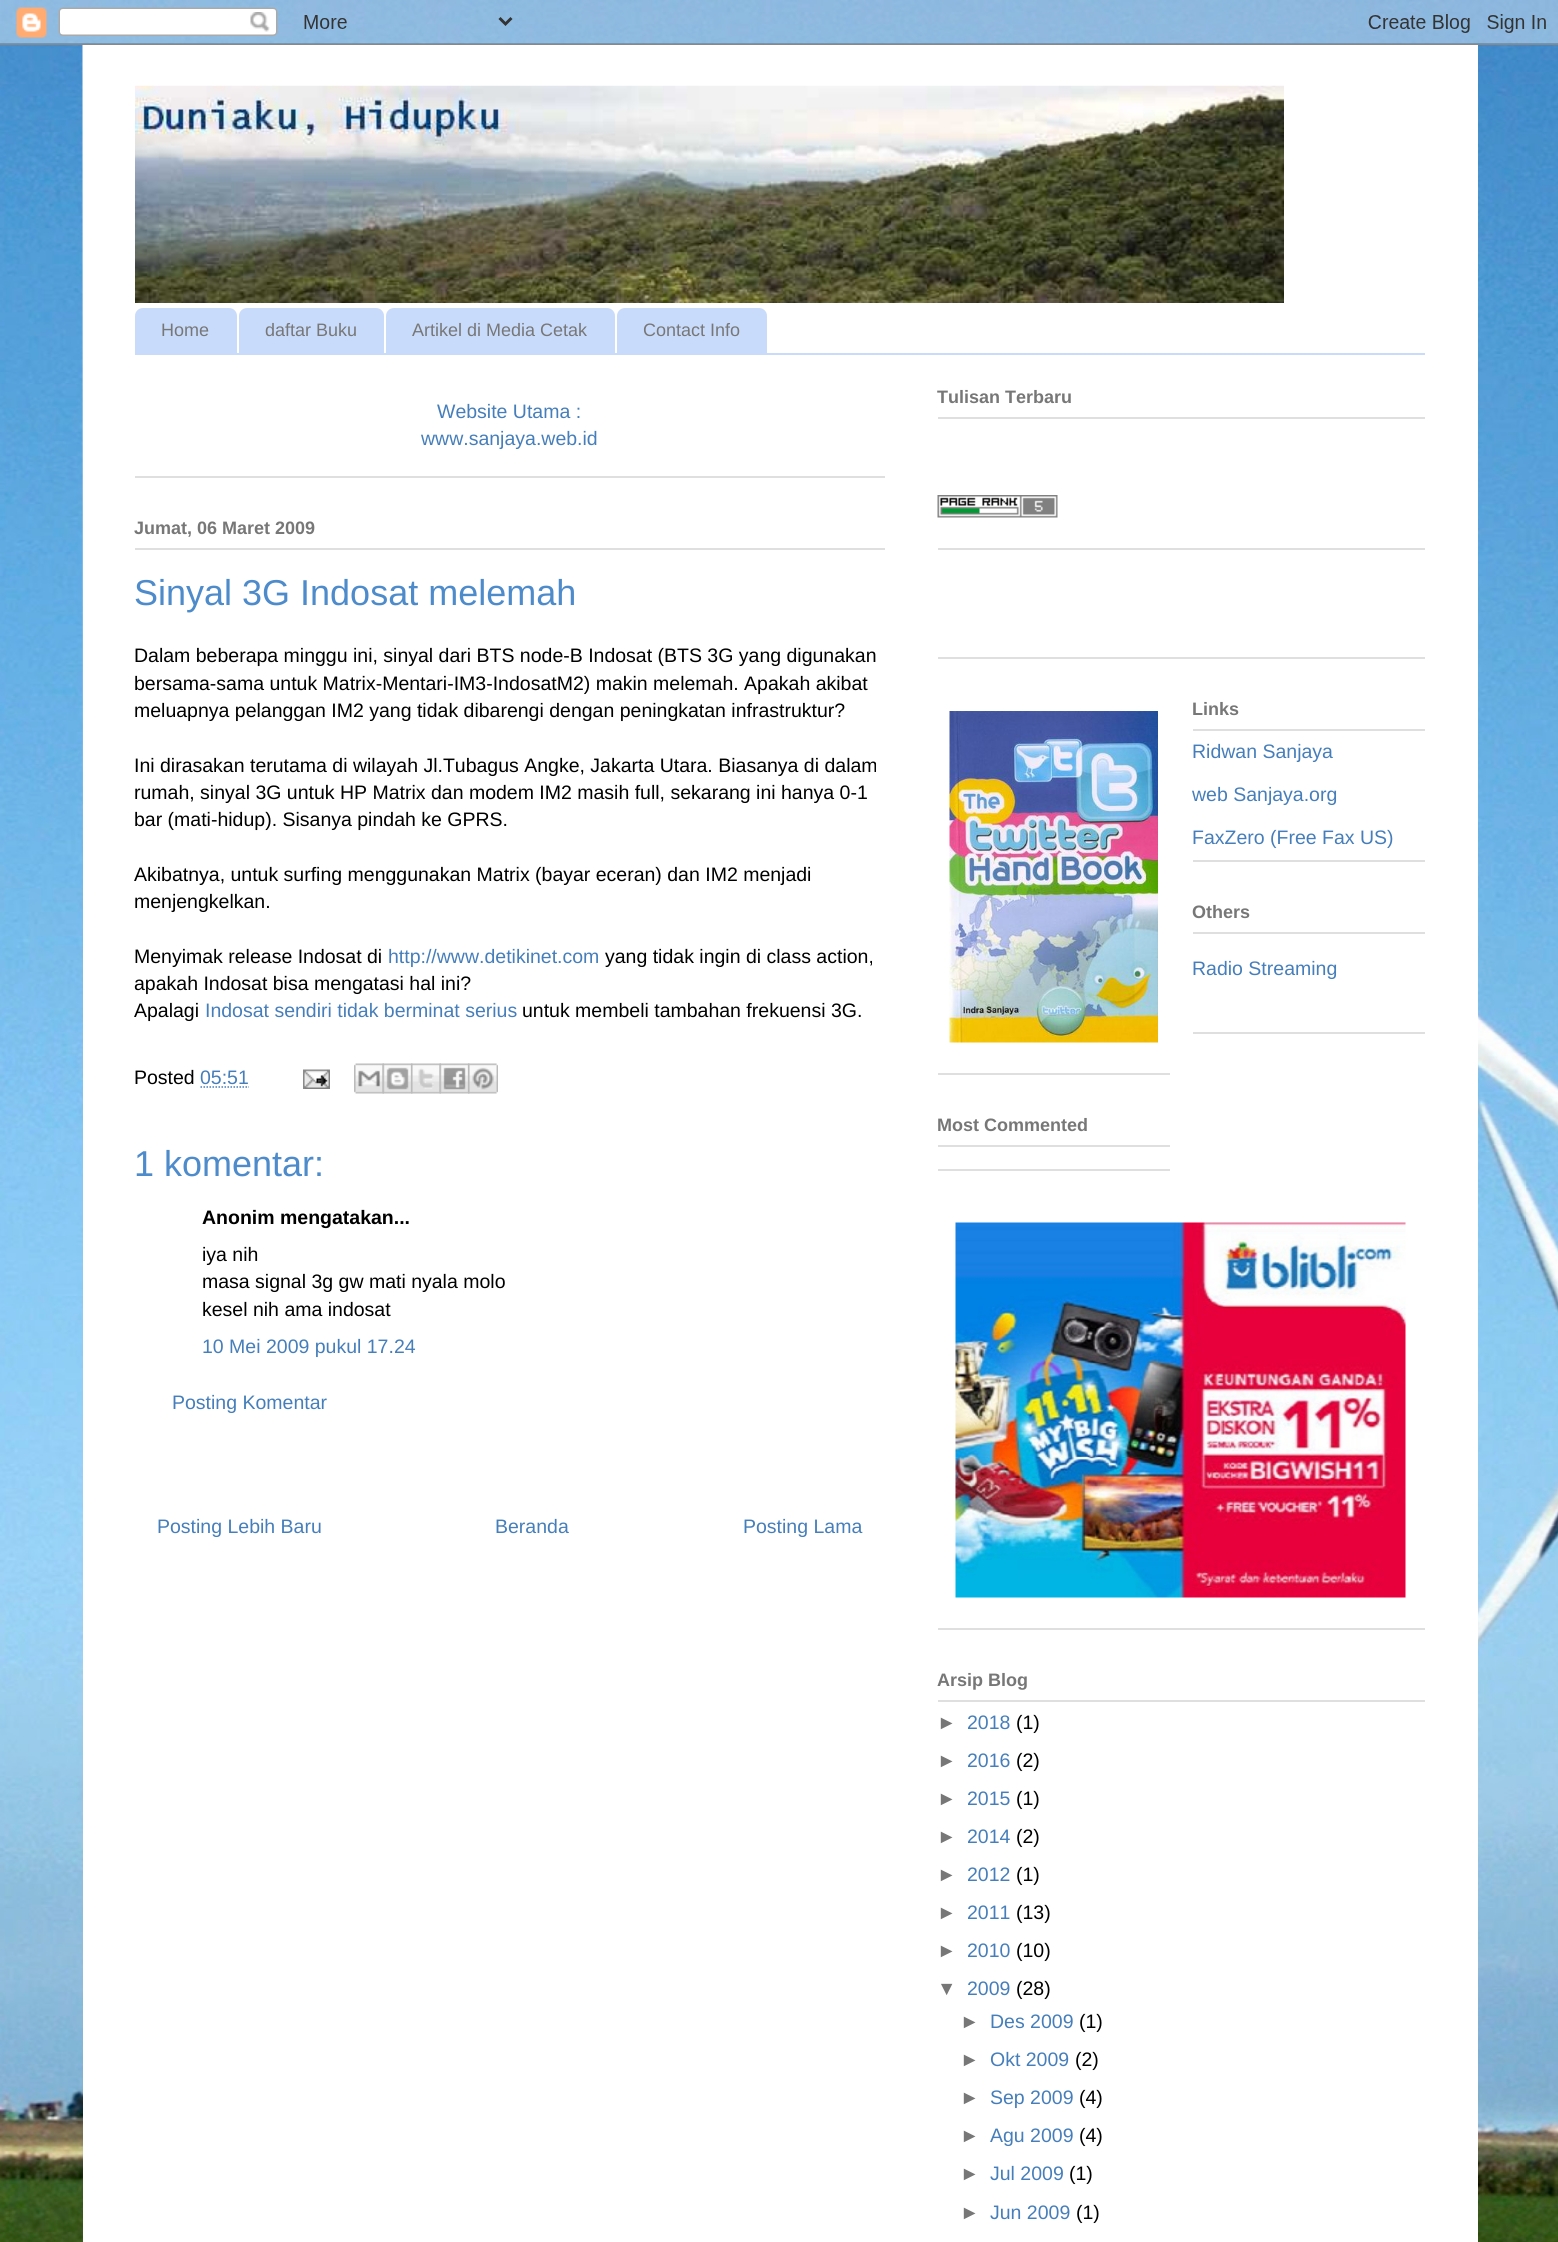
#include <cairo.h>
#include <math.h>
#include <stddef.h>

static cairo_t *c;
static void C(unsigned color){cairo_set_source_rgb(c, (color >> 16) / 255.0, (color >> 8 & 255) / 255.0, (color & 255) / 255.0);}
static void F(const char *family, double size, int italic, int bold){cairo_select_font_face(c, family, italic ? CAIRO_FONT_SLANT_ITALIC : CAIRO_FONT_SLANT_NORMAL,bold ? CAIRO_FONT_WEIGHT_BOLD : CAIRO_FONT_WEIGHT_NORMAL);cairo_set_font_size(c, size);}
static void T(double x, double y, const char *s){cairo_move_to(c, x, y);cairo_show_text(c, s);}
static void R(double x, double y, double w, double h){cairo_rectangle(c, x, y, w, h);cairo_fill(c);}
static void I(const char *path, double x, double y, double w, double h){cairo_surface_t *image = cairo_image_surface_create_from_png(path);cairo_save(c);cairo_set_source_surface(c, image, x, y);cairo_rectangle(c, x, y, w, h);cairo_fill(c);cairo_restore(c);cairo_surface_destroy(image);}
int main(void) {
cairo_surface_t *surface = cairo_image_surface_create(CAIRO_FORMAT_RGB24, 1558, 2242);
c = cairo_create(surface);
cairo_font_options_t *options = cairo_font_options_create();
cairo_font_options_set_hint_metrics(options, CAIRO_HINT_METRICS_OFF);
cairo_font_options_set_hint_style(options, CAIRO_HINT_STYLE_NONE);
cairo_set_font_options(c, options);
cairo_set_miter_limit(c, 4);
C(0xffffff);
cairo_paint(c);
I("1.png",0,0,1558,2242);
I("2.png",0,0,1558,45);
C(0xffffff);
R(83,45,1395,2197);
I("3.png",82,45,1,802);
I("4.png",135,85,1149,218);
C(0xc9dbfa);
R(135,353,1290,2);
cairo_new_path(c);
cairo_move_to(c,143,308);
cairo_line_to(c,229,308);
cairo_curve_to(c,233.5,308,237,311.5,237,316);
cairo_line_to(c,237,353);
cairo_line_to(c,135,353);
cairo_line_to(c,135,316);
cairo_curve_to(c,135,311.5,138.5,308,143,308);
cairo_close_path(c);
cairo_fill(c);
F("Liberation Sans",18,0,0);
C(0x777777);
T(161,336,"Home");
C(0xc9dbfa);
cairo_new_path(c);
cairo_move_to(c,247,308);
cairo_line_to(c,376,308);
cairo_curve_to(c,380.5,308,384,311.5,384,316);
cairo_line_to(c,384,353);
cairo_line_to(c,239,353);
cairo_line_to(c,239,316);
cairo_curve_to(c,239,311.5,242.5,308,247,308);
cairo_close_path(c);
cairo_fill(c);
C(0x777777);
T(265,336,"daftar Buku");
C(0xc9dbfa);
cairo_new_path(c);
cairo_move_to(c,394,308);
cairo_line_to(c,607,308);
cairo_curve_to(c,611.5,308,615,311.5,615,316);
cairo_line_to(c,615,353);
cairo_line_to(c,386,353);
cairo_line_to(c,386,316);
cairo_curve_to(c,386,311.5,389.5,308,394,308);
cairo_close_path(c);
cairo_fill(c);
C(0x777777);
T(412,336,"Artikel di Media Cetak");
C(0xc9dbfa);
cairo_new_path(c);
cairo_move_to(c,625,308);
cairo_line_to(c,759,308);
cairo_curve_to(c,763.5,308,767,311.5,767,316);
cairo_line_to(c,767,353);
cairo_line_to(c,617,353);
cairo_line_to(c,617,316);
cairo_curve_to(c,617,311.5,620.5,308,625,308);
cairo_close_path(c);
cairo_fill(c);
C(0x777777);
T(643,336,"Contact Info");
C(0xdfdfdf);
R(135,476,750,2);
F("Liberation Sans",19.5,0,0);
C(0x457eba);
T(437,418,"Website Utama :");
T(421,445,"www.sanjaya.web.id");
C(0xdfdfdf);
R(135,548,750,2);
F("Liberation Sans",18,0,1);
C(0x777777);
T(134,534,"Jumat, 06 Maret 2009");
F("Liberation Sans",36,0,0);
C(0x4e8bcb);
T(134,605,"Sinyal 3G Indosat melemah");
F("Liberation Sans",19.5,0,0);
C(0x000000);
T(134,662,"Dalam beberapa minggu ini, sinyal dari BTS node-B Indosat (BTS 3G yang digunakan");
T(134,690,"bersama-sama untuk Matrix-Mentari-IM3-IndosatM2) makin melemah. Apakah akibat");
T(134,717,"meluapnya pelanggan IM2 yang tidak dibarengi dengan peningkatan infrastruktur?");
T(134,772,"Ini dirasakan terutama di wilayah Jl.Tubagus Angke, Jakarta Utara. Biasanya di dalam");
T(134,799,"rumah, sinyal 3G untuk HP Matrix dan modem IM2 masih full, sekarang ini hanya 0-1");
T(134,826,"bar (mati-hidup). Sisanya pindah ke GPRS.");
T(134,881,"Akibatnya, untuk surfing menggunakan Matrix (bayar eceran) dan IM2 menjadi");
T(134,908,"menjengkelkan.");
T(134,963,"Menyimak release Indosat di");
C(0x457eba);
T(388,963,"http://www.detikinet.com");
C(0x000000);
T(605,963,"yang tidak ingin di class action,");
T(134,990,"apakah Indosat bisa mengatasi hal ini?");
T(134,1017,"Apalagi");
C(0x457eba);
T(205,1017,"Indosat sendiri tidak berminat serius");
C(0x000000);
T(522,1017,"untuk membeli tambahan frekuensi 3G.");
T(134,1084,"Posted");
C(0x457eba);
T(200,1084,"05:51");
cairo_new_path(c);
cairo_move_to(c,200.5,1087);
cairo_line_to(c,249,1087);
cairo_set_line_width(c,1.5);
cairo_set_dash(c,(double[]){1.5,1.5},2,0);
cairo_stroke(c);
I("5.png",303,1069,27,20);
I("6.png",354,1063,30,31);
I("7.png",382,1063,31,31);
I("8.png",411,1063,30,31);
I("9.png",439,1063,31,31);
I("10.png",468,1063,30,31);
F("Liberation Sans",36,0,0);
C(0x4e8bcb);
T(134,1176,"1 komentar:");
F("Liberation Sans",19.5,0,1);
C(0x000000);
T(202,1224,"Anonim mengatakan...");
F("Liberation Sans",19.5,0,0);
T(202,1261,"iya nih");
T(202,1288,"masa signal 3g gw mati nyala molo");
T(202,1316,"kesel nih ama indosat");
C(0x457eba);
T(202,1353,"10 Mei 2009 pukul 17.24");
T(172,1409,"Posting Komentar");
T(157,1533,"Posting Lebih Baru");
T(495,1533,"Beranda");
T(743,1533,"Posting Lama");
C(0xdfdfdf);
R(938,548,487,2);
R(938,417,487,2);
F("Liberation Sans",18,0,1);
C(0x777777);
T(937,403,"Tulisan Terbaru");
I("11.png",937,495,121,23);
C(0xdfdfdf);
R(938,657,487,2);
R(1193,860,232,2);
R(1193,729,232,2);
C(0x777777);
T(1192,715,"Links");
F("Liberation Sans",19.5,0,0);
C(0x457eba);
T(1192,758,"Ridwan Sanjaya");
T(1192,801,"web Sanjaya.org");
T(1192,844,"FaxZero (Free Fax US)");
C(0xdfdfdf);
R(1193,1032,232,2);
R(1193,932,232,2);
F("Liberation Sans",18,0,1);
C(0x777777);
T(1192,918,"Others");
F("Liberation Sans",19.5,0,0);
C(0x457eba);
T(1192,975,"Radio Streaming");
C(0xdfdfdf);
R(938,1073,232,2);
I("12.png",949,711,209,332);
R(938,1169,232,2);
R(938,1145,232,2);
F("Liberation Sans",18,0,1);
C(0x777777);
T(937,1131,"Most Commented");
C(0xdfdfdf);
R(938,1628,487,2);
I("13.png",955,1222,451,376);
R(938,1700,487,2);
C(0x777777);
T(937,1686,"Arsip Blog");
F("Liberation Sans",19.5,0,0);
T(937,1729,"►");
C(0x457eba);
T(967,1729,"2018");
C(0x000000);
T(1016,1729,"(1)");
C(0x777777);
T(937,1767,"►");
C(0x457eba);
T(967,1767,"2016");
C(0x000000);
T(1016,1767,"(2)");
C(0x777777);
T(937,1805,"►");
C(0x457eba);
T(967,1805,"2015");
C(0x000000);
T(1016,1805,"(1)");
C(0x777777);
T(937,1843,"►");
C(0x457eba);
T(967,1843,"2014");
C(0x000000);
T(1016,1843,"(2)");
C(0x777777);
T(937,1881,"►");
C(0x457eba);
T(967,1881,"2012");
C(0x000000);
T(1016,1881,"(1)");
C(0x777777);
T(937,1919,"►");
C(0x457eba);
T(967,1919,"2011");
C(0x000000);
T(1016,1919,"(13)");
C(0x777777);
T(937,1957,"►");
C(0x457eba);
T(967,1957,"2010");
C(0x000000);
T(1016,1957,"(10)");
C(0x777777);
T(937,1995,"▼");
C(0x457eba);
T(967,1995,"2009");
C(0x000000);
T(1016,1995,"(28)");
C(0x777777);
T(960,2028,"►");
C(0x457eba);
T(990,2028,"Des 2009");
C(0x000000);
T(1079,2028,"(1)");
C(0x777777);
T(960,2066,"►");
C(0x457eba);
T(990,2066,"Okt 2009");
C(0x000000);
T(1075,2066,"(2)");
C(0x777777);
T(960,2104,"►");
C(0x457eba);
T(990,2104,"Sep 2009");
C(0x000000);
T(1079,2104,"(4)");
C(0x777777);
T(960,2142,"►");
C(0x457eba);
T(990,2142,"Agu 2009");
C(0x000000);
T(1079,2142,"(4)");
C(0x777777);
T(960,2180,"►");
C(0x457eba);
T(990,2180,"Jul 2009");
C(0x000000);
T(1069,2180,"(1)");
C(0x777777);
T(960,2219,"►");
C(0x457eba);
T(990,2219,"Jun 2009");
C(0x000000);
T(1076,2219,"(1)");
cairo_surface_write_to_png(surface, "o.png");
cairo_font_options_destroy(options);
cairo_destroy(c);
cairo_surface_destroy(surface);
return 0;
}
